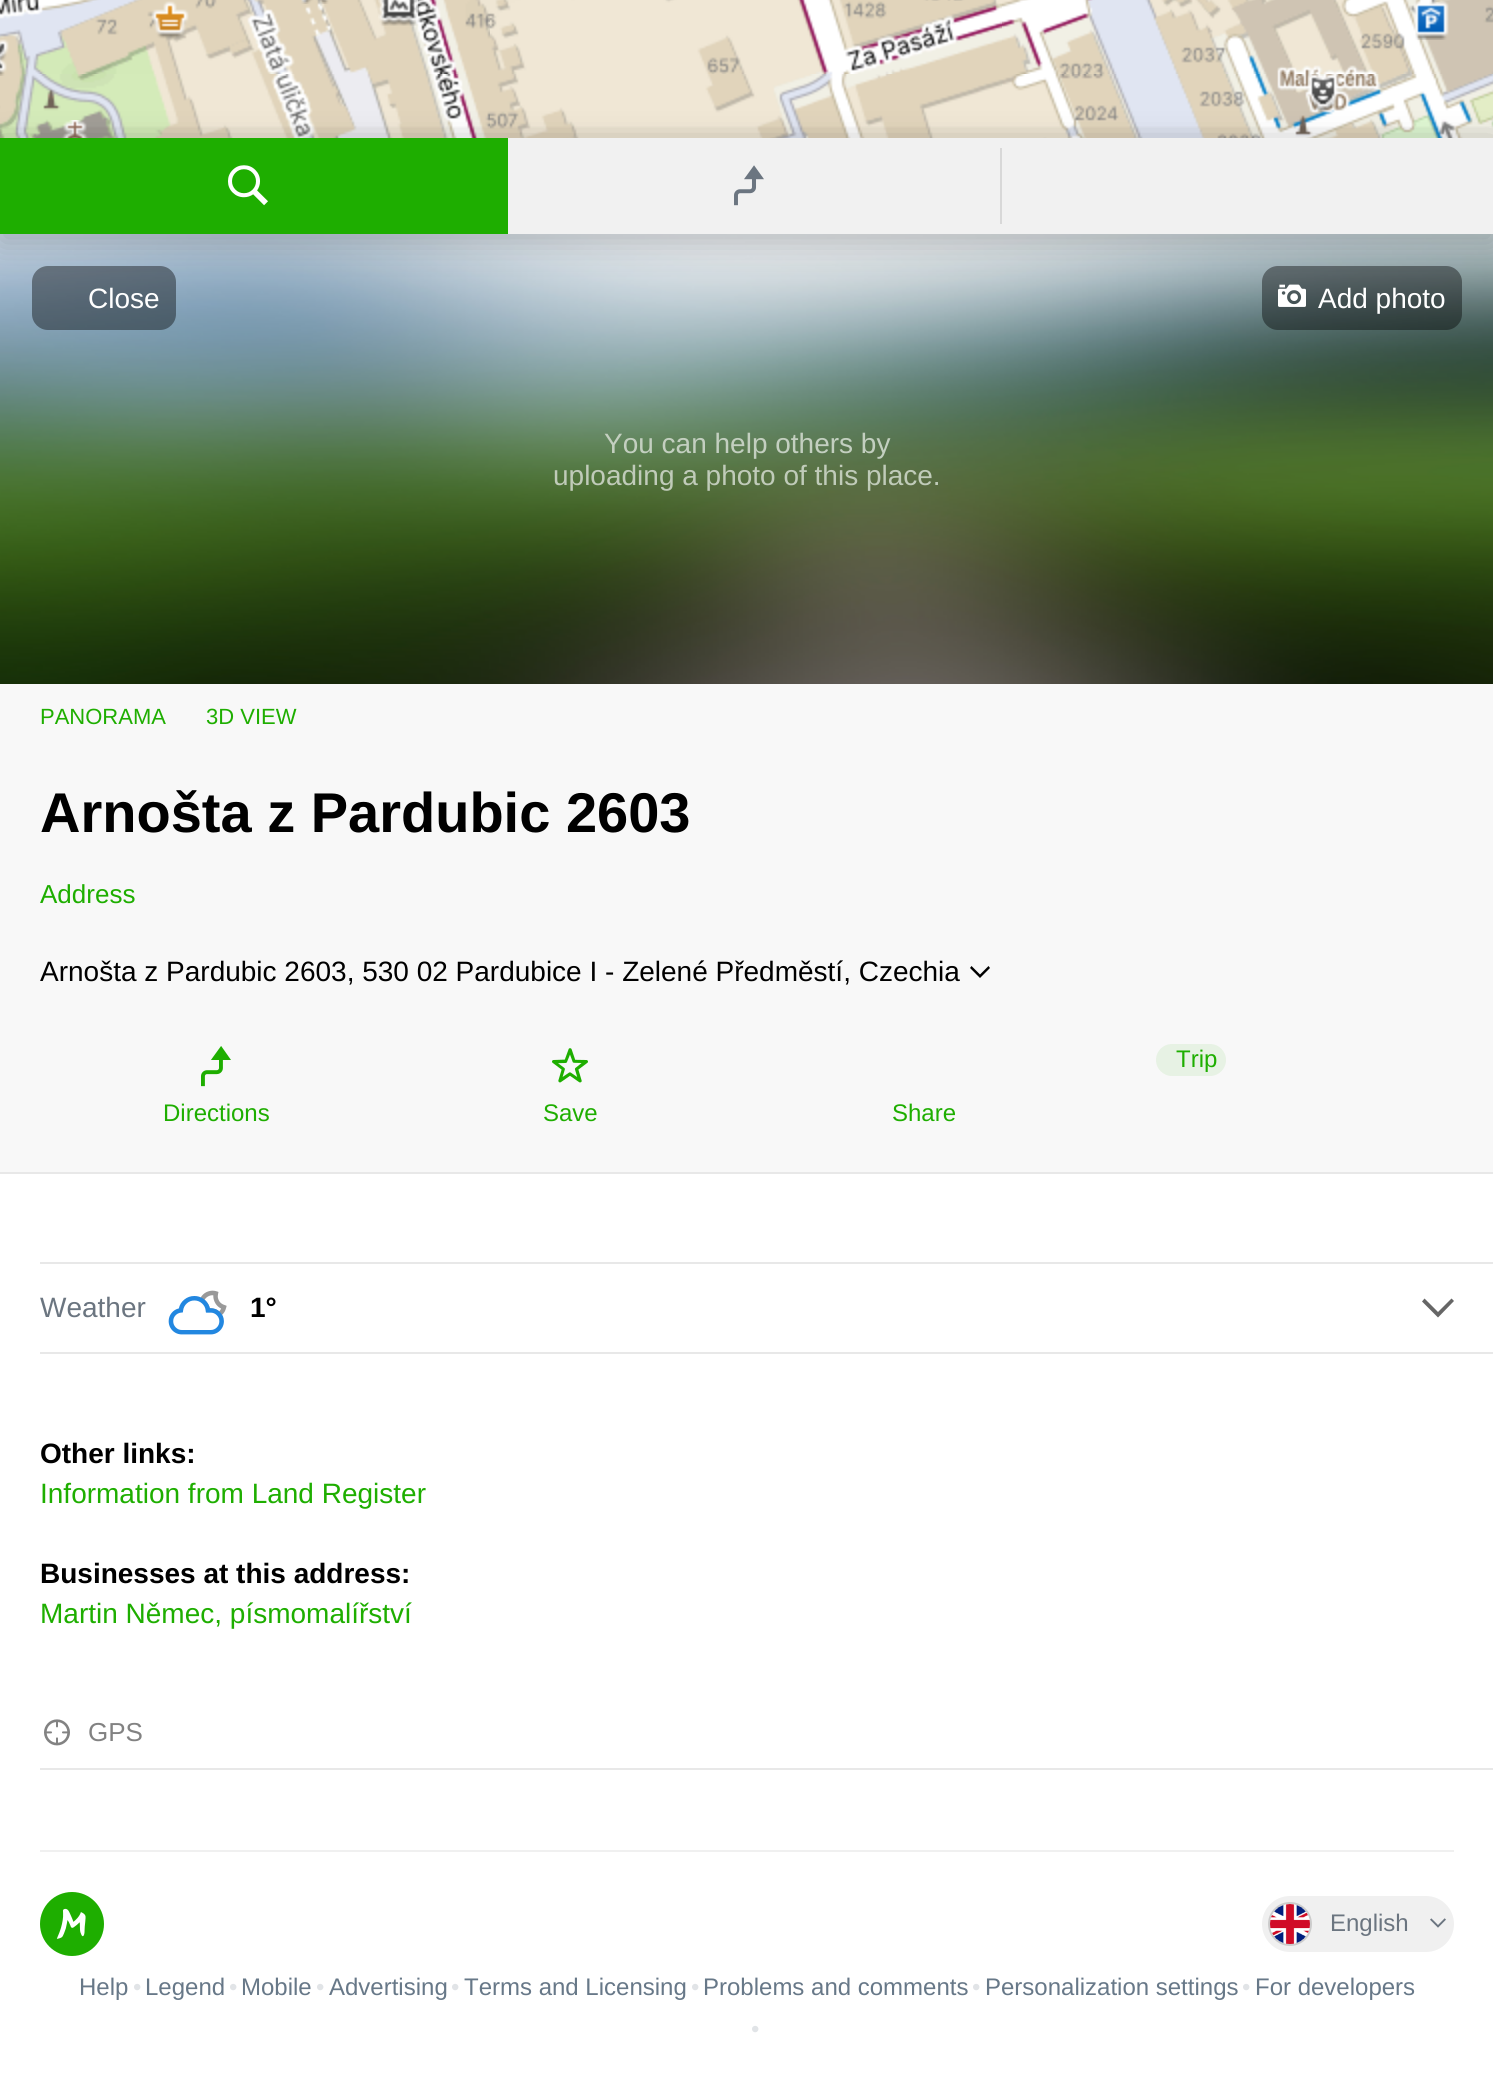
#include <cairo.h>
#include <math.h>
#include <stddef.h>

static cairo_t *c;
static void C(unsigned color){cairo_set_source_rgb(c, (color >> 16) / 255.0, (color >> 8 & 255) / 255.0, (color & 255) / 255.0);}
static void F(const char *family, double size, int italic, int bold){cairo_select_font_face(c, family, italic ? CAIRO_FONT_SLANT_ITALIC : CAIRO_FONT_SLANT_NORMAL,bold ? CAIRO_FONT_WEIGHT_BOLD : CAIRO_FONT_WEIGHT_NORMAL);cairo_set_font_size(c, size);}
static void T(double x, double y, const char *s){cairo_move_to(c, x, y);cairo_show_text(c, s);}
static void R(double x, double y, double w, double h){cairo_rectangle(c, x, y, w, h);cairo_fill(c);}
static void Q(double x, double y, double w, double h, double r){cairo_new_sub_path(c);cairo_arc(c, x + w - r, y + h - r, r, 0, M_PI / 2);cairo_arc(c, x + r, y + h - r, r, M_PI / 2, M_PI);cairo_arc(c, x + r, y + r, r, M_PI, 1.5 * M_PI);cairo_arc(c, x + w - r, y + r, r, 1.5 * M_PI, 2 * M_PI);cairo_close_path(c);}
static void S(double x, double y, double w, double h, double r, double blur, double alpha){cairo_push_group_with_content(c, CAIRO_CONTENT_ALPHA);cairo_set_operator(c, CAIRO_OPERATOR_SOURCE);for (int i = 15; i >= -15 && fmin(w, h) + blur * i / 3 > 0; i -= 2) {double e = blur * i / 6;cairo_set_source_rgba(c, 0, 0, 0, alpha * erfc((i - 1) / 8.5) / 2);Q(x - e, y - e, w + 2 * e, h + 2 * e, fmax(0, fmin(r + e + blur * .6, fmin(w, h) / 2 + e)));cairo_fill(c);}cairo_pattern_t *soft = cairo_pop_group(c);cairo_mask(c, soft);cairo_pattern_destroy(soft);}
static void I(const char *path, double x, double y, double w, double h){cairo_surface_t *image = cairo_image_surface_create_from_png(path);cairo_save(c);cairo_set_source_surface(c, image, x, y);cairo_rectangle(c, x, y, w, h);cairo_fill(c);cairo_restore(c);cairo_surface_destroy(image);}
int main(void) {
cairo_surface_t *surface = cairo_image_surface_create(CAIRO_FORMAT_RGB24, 1493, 2095);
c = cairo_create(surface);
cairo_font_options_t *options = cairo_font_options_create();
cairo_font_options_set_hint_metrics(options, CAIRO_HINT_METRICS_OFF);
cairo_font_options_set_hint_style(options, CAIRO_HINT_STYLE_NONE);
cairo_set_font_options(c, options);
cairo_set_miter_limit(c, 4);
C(0xffffff);
cairo_paint(c);
I("1.png",0,0,490,74);
I("2.png",490,0,512,74);
I("3.png",1002,0,491,74);
I("4.png",0,74,490,64);
I("5.png",490,74,512,64);
I("6.png",1002,74,491,64);
I("7.png",151,1,38,38);
I("8.png",301,0,28,4);
I("9.png",378,0,40,26);
I("10.png",1413,1,36,39);
I("11.png",0,39,9,37);
I("12.png",1307,73,32,39);
I("13.png",61,120,28,18);
cairo_save(c);
cairo_rectangle(c,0,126,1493,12);
cairo_clip(c);
C(0x000000);
S(0,146,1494,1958,0,16,.2);
cairo_restore(c);
I("17.png",0,234,1493,450);
cairo_set_source_rgba(c,0,0,0,0.4);
Q(32,266,144,64,16);
cairo_fill(c);
Q(1262,266,200,64,16);
cairo_fill(c);
I("16.png",1278,284,28,23);
C(0x000000);
S(0,146,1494,96,0,16,.2);
C(0xf1f1f1);
R(508,138,985,96);
C(0x1eae00);
R(0,138,508,96);
I("14.png",228,165,40,41);
I("15.png",734,165,30,41);
C(0xd8d8d8);
R(1000,148,2,76);
F("Liberation Sans",28,0,0);
C(0xffffff);
T(88,308,"Close");
T(1318,308,"Add photo");
C(0xc3cfc0);
T(604,453,"You can help others by");
C(0xc0cbb9);
T(553,485,"uploading a photo of this place.");
C(0xf8f8f8);
R(0,684,1493,488);
C(0xe8e8e8);
R(0,1172,1493,2);
F("Liberation Sans",22,0,0);
C(0x1eae00);
T(40,724,"PANORAMA");
T(206,724,"3D VIEW");
F("Liberation Sans",56,0,1);
C(0x000000);
T(40,832,"Arnošta z Pardubic 2603");
F("Liberation Sans",26,0,0);
C(0x1eae00);
T(40,903,"Address");
F("Liberation Sans",28,0,0);
C(0x000000);
T(40,981,"Arnošta z Pardubic 2603, 530 02 Pardubice I - Zelené Předměstí, Czechia");
cairo_new_path(c);
cairo_move_to(c,980,978);
cairo_line_to(c,970,968);
cairo_line_to(c,971.5,966);
cairo_line_to(c,980,974.5);
cairo_line_to(c,988.5,966);
cairo_line_to(c,990,968);
cairo_close_path(c);
cairo_fill(c);
C(0xe7f2e4);
Q(1156,1044,70,32,16);
cairo_fill(c);
F("Liberation Sans",24,0,0);
C(0x1eae00);
T(1176,1067,"Trip");
I("18.png",201,1046,30,41);
T(163,1121,"Directions");
I("19.png",552,1048,36,35);
T(543,1121,"Save");
T(892,1121,"Share");
C(0xe8e8e8);
R(40,1262,1453,2);
R(40,1352,1453,2);
F("Liberation Sans",28,0,0);
C(0x6b7580);
T(40,1317,"Weather");
I("20.png",168,1290,59,45);
F("Liberation Sans",28,0,1);
C(0x000000);
T(250,1317,"1°");
C(0x666666);
cairo_new_path(c);
cairo_move_to(c,1438,1317.5);
cairo_line_to(c,1422,1301.5);
cairo_line_to(c,1424.5,1298.5);
cairo_line_to(c,1438,1312);
cairo_line_to(c,1451.5,1298.5);
cairo_line_to(c,1454,1301);
cairo_close_path(c);
cairo_fill(c);
C(0x000000);
T(40,1463,"Other links:");
F("Liberation Sans",28,0,0);
C(0x1eae00);
T(40,1503,"Information from Land Register");
F("Liberation Sans",28,0,1);
C(0x000000);
T(40,1583,"Businesses at this address:");
F("Liberation Sans",28,0,0);
C(0x1eae00);
T(40,1623,"Martin Němec, písmomalířství");
C(0xe8e8e8);
R(40,1768,1453,2);
I("21.png",44,1719,26,27);
F("Liberation Sans",26,0,0);
C(0x828282);
T(88,1741,"GPS");
C(0xf0f0f0);
R(40,1850,1414,2);
C(0x1eae00);
cairo_new_path(c);
cairo_arc(c,72,1924,32,0,2 * M_PI);
cairo_fill(c);
I("22.png",56,1908,30,31);
C(0xf0f0f0);
Q(1262,1896,192,56,28);
cairo_fill(c);
cairo_arc(c,1290,1924,21,0,2 * M_PI);
C(0xcccccc);
cairo_stroke(c);
I("23.png",1270,1904,40,40);
F("Liberation Sans",24,0,0);
C(0x6b7580);
T(1330,1931,"English");
I("24.png",1430,1918,16,10);
C(0x677888);
T(79,1995,"Help");
C(0xe1e4e7);
T(133,1995,"•");
C(0x677888);
T(145,1995,"Legend");
C(0xe1e4e7);
T(229,1995,"•");
C(0x677888);
T(241,1995,"Mobile");
C(0xe1e4e7);
T(316,1995,"•");
C(0x677888);
T(329,1995,"Advertising");
C(0xe1e4e7);
T(451,1995,"•");
C(0x677888);
T(464,1995,"Terms and Licensing");
C(0xe1e4e7);
T(691,1995,"•");
C(0x677888);
T(703,1995,"Problems and comments");
C(0xe1e4e7);
T(972,1995,"•");
C(0x677888);
T(985,1995,"Personalization settings");
C(0xe1e4e7);
T(1242,1995,"•");
C(0x677888);
T(1255,1995,"For developers");
C(0xe1e4e7);
T(751,2037,"•");
cairo_surface_write_to_png(surface, "o.png");
cairo_font_options_destroy(options);
cairo_destroy(c);
cairo_surface_destroy(surface);
return 0;
}
